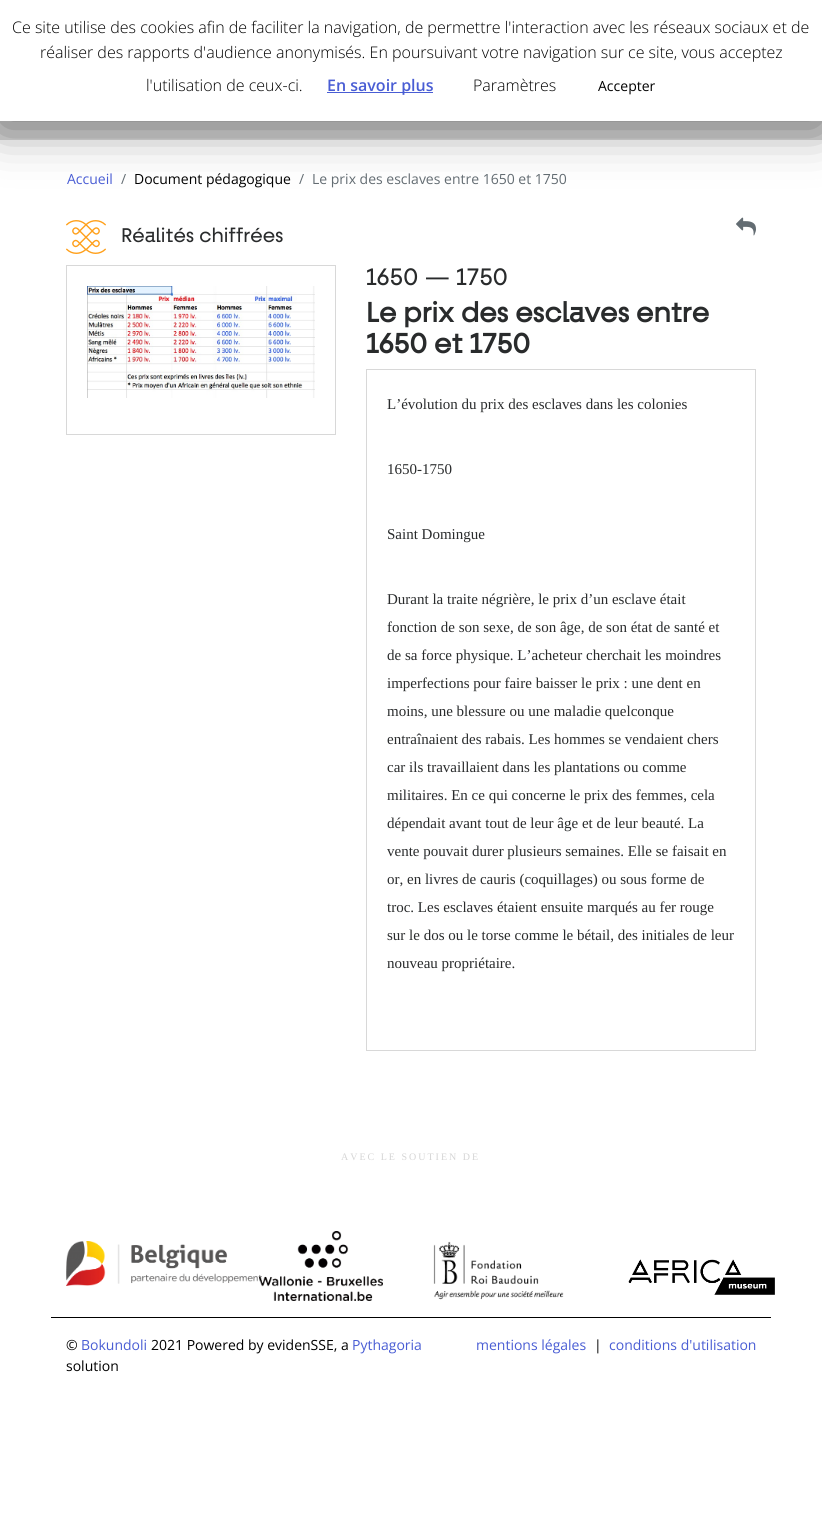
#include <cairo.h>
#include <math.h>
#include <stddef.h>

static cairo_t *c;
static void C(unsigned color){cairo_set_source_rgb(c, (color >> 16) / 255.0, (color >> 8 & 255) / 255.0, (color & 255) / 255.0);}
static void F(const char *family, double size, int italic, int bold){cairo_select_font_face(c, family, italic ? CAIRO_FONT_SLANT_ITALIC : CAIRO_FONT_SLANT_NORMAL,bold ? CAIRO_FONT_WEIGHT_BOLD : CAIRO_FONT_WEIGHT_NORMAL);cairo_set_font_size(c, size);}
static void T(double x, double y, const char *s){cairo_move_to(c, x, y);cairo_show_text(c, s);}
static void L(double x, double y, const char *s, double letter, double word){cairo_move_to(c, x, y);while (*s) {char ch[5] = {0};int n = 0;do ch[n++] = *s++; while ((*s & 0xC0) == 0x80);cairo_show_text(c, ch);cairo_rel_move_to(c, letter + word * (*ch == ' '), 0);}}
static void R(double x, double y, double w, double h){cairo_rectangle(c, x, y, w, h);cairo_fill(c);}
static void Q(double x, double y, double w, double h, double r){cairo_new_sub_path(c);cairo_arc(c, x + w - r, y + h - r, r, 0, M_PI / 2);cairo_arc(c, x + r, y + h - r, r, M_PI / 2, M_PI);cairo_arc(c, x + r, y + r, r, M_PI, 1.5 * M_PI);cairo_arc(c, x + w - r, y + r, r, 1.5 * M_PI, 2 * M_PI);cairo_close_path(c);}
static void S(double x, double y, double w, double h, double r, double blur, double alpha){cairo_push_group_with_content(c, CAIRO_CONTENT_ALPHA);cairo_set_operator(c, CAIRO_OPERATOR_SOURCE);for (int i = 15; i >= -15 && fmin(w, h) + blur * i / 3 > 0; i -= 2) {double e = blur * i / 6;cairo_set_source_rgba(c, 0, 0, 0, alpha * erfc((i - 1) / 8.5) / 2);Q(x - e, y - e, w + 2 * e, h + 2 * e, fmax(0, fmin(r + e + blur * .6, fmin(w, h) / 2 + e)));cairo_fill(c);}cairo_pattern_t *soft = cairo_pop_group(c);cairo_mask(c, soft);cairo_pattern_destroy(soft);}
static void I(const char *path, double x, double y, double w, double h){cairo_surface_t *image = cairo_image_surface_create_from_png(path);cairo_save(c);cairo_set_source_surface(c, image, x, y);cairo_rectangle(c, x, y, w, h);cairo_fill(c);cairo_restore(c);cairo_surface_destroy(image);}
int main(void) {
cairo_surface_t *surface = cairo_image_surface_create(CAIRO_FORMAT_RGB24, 822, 1526);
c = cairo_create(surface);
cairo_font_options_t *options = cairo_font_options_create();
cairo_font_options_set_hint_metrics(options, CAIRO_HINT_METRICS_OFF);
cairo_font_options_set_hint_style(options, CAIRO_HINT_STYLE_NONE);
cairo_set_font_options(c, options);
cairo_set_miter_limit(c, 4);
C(0xffffff);
cairo_paint(c);
C(0xd8d8d8);
R(0,121,822,19);
C(0x000000);
S(0,5,822,121,0,25,.5);
C(0xffffff);
R(0,0,822,121);
F("Open Sans Light",16,0,0);
C(0x000000);
T(12,33,"Ce site utilise des cookies afin de faciliter la navigation, de permettre l'interaction avec les réseaux sociaux et de");
T(40,58,"réaliser des rapports d'audience anonymisés. En poursuivant votre navigation sur ce site, vous acceptez");
T(146,91,"l'utilisation de ceux-ci.");
C(0x495dd4);
R(327,92,106,1);
F("Open Sans SemiBold",16,0,0);
T(327,91,"En savoir plus");
F("Open Sans Light",16,0,0);
C(0x000000);
T(473,91,"Paramètres");
F("Open Sans",14,0,0);
T(598,91,"Accepter");
C(0x495dd4);
T(67,184,"Accueil");
C(0x636c72);
T(121,184,"/");
C(0x000000);
T(134,184,"Document pédagogique");
C(0x636c72);
T(299,184,"/");
T(312,184,"Le prix des esclaves entre 1650 et 1750");
I("1.png",66,220,40,34);
F("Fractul",20,0,0);
C(0x292b2c);
T(121,242,"Réalités chiffrées");
I("2.png",736,217,20,19);
cairo_rectangle(c,66.5,265.5,269,169);
C(0xd8d8d8);
cairo_set_line_width(c,1);
cairo_stroke(c);
I("3.png",87,286,228,112);
F("Fractul",24,0,0);
C(0x292b2c);
T(366,285,"1650 — 1750");
F("Fractul",28,0,1);
T(366,322,"Le prix des esclaves entre");
T(366,353,"1650 et 1750");
cairo_rectangle(c,366.5,369.5,389,681);
C(0xd8d8d8);
cairo_stroke(c);
F("Liberation Serif",15,0,0);
C(0x292b2c);
T(387,409,"L’évolution du prix des esclaves dans les colonies");
T(387,474,"1650-1750");
T(387,539,"Saint Domingue");
T(387,604,"Durant la traite négrière, le prix d’un esclave était");
T(387,632,"fonction de son sexe, de son âge, de son état de santé et");
T(387,660,"de sa force physique. L’acheteur cherchait les moindres");
T(387,688,"imperfections pour faire baisser le prix : une dent en");
T(387,716,"moins, une blessure ou une maladie quelconque");
T(387,744,"entraînaient des rabais. Les hommes se vendaient chers");
T(387,772,"car ils travaillaient dans les plantations ou comme");
T(387,800,"militaires. En ce qui concerne le prix des femmes, cela");
T(387,828,"dépendait avant tout de leur âge et de leur beauté. La");
T(387,856,"vente pouvait durer plusieurs semaines. Elle se faisait en");
T(387,884,"or, en livres de cauris (coquillages) ou sous forme de");
T(387,912,"troc. Les esclaves étaient ensuite marqués au fer rouge");
T(387,940,"sur le dos ou le torse comme le bétail, des initiales de leur");
T(387,968,"nouveau propriétaire.");
F("Liberation Serif",10,0,0);
C(0xd5d5d5);
L(341,1160,"AVEC LE SOUTIEN DE",2,0);
I("4.png",66,1241,196,45);
I("5.png",259,1231,124,70);
I("6.png",433,1241,131,59);
I("7.png",628,1259,147,36);
C(0x000000);
R(51,1317,720,1);
F("Open Sans",14,0,0);
T(66,1350,"©");
C(0x495dd4);
T(81,1350,"Bokundoli");
C(0x000000);
T(151,1350,"2021 Powered by evidenSSE, a");
C(0x495dd4);
T(352,1350,"Pythagoria");
C(0x000000);
T(66,1371,"solution");
C(0x495dd4);
T(476,1350,"mentions légales");
C(0x000000);
T(594,1350,"|");
C(0x495dd4);
T(609,1350,"conditions d'utilisation");
cairo_surface_write_to_png(surface, "o.png");
cairo_font_options_destroy(options);
cairo_destroy(c);
cairo_surface_destroy(surface);
return 0;
}
